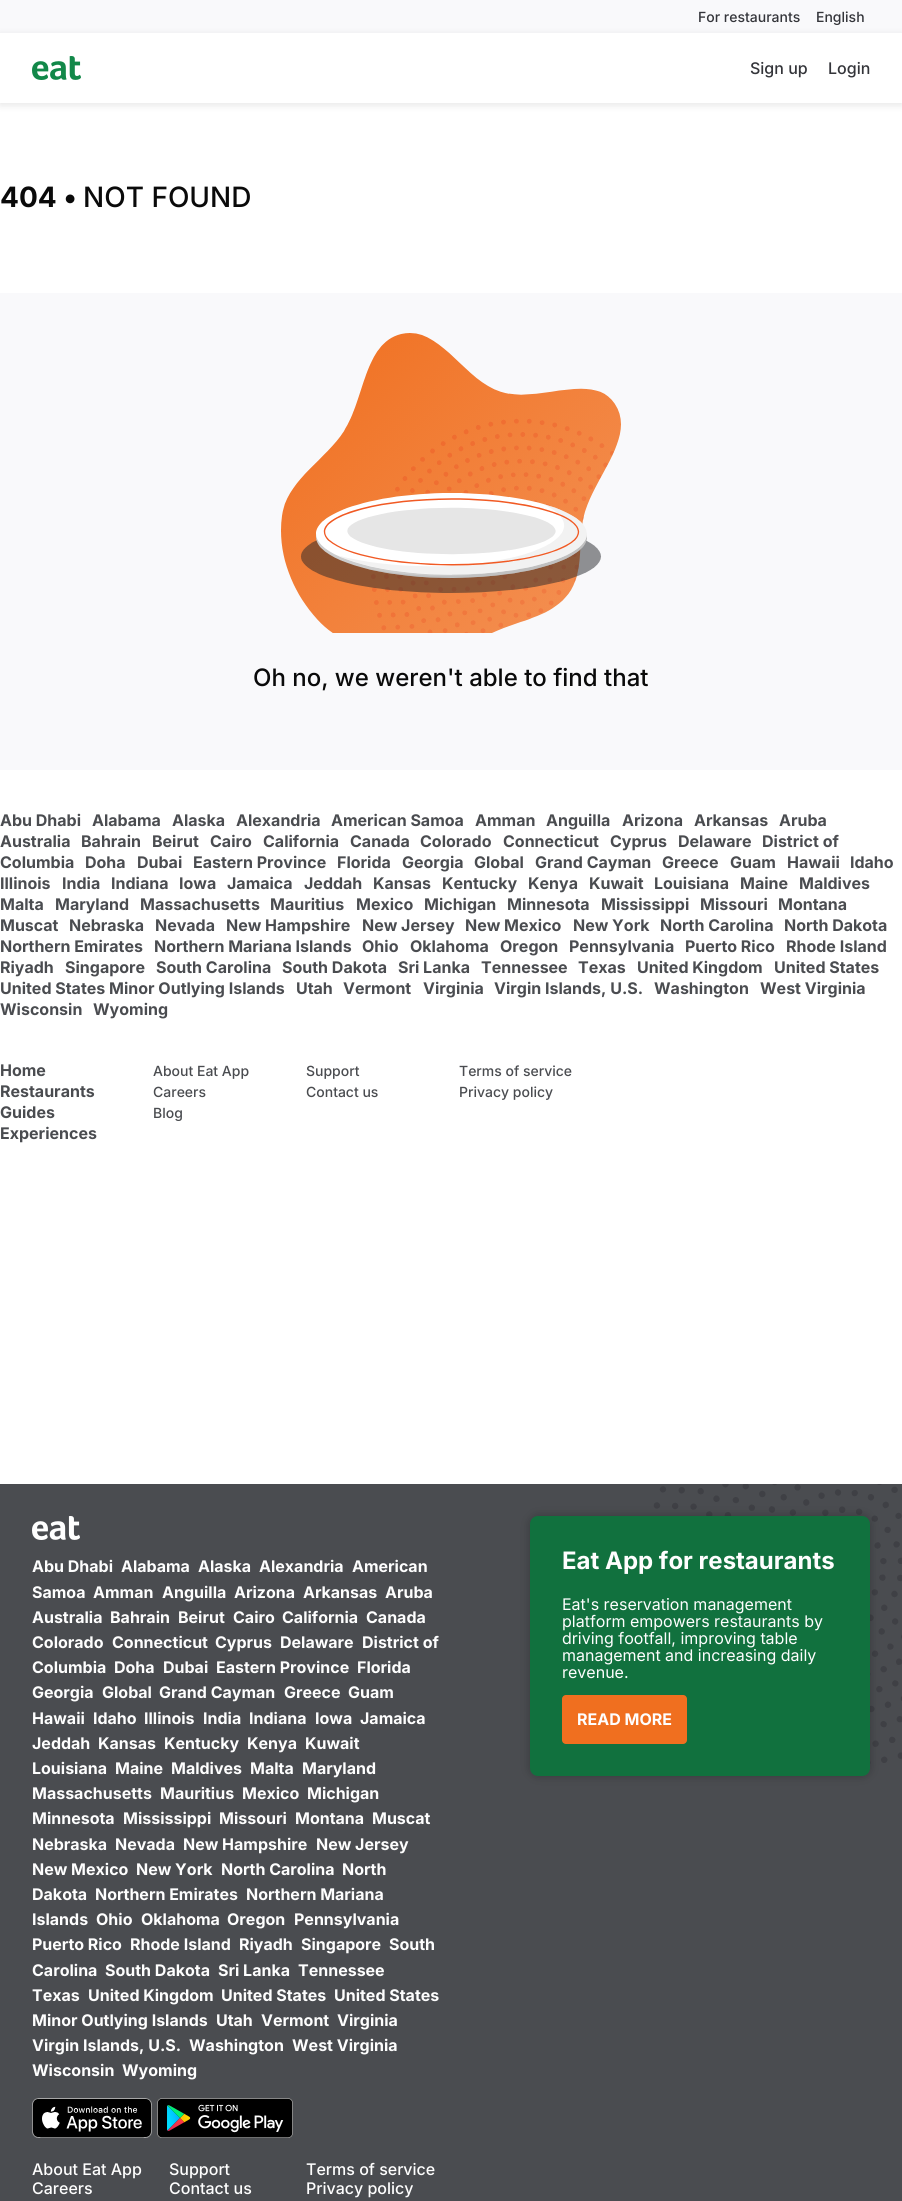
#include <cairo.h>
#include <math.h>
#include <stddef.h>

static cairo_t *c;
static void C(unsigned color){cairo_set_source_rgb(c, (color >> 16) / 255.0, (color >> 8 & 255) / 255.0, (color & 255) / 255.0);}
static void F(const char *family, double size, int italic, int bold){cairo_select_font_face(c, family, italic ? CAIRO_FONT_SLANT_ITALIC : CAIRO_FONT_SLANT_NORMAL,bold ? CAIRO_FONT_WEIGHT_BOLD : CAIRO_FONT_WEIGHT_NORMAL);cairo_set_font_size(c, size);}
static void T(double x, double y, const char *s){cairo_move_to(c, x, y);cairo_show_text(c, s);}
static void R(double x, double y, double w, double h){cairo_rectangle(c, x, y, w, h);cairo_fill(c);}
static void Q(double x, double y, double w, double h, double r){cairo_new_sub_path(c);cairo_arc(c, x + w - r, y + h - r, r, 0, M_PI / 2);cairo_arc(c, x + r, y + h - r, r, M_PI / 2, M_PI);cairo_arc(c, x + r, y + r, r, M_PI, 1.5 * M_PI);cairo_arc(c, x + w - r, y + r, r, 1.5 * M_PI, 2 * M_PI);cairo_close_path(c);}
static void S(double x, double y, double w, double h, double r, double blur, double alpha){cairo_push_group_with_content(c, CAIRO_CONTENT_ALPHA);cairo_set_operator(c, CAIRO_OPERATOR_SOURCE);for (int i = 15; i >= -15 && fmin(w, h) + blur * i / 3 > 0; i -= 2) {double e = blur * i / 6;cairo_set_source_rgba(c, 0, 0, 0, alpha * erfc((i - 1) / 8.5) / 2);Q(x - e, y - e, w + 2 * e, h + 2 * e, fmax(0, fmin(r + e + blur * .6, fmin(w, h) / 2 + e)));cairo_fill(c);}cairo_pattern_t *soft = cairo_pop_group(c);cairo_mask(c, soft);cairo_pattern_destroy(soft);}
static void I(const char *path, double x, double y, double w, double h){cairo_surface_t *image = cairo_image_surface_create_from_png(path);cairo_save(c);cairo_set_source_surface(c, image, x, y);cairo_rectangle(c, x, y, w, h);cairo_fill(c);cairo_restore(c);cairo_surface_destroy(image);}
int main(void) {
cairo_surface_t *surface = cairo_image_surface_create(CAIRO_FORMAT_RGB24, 902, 2201);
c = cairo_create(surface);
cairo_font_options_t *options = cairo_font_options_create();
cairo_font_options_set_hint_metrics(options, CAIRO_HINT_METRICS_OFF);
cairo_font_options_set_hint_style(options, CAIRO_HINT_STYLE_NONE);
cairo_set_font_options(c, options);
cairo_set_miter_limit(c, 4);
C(0xffffff);
cairo_paint(c);
C(0xf9f9fb);
R(0,0,902,33);
cairo_save(c);
cairo_set_fill_rule(c,CAIRO_FILL_RULE_EVEN_ODD);
cairo_new_path(c);
cairo_move_to(c,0,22);
cairo_line_to(c,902,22);
cairo_line_to(c,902,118);
cairo_line_to(c,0,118);
cairo_close_path(c);
cairo_move_to(c,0,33);
cairo_line_to(c,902,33);
cairo_line_to(c,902,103);
cairo_line_to(c,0,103);
cairo_close_path(c);
cairo_clip(c);
C(0x505050);
S(0,35,902,70,0,4,.15);
cairo_restore(c);
F("Inter Medium",14,0,0);
C(0x34353a);
T(698,22,"For restaurants");
T(816,22,"English");
I("1.png",32,56,49,24);
F("Inter Medium",16,0,0);
T(750,74,"Sign up");
T(828,74,"Login");
F("Inter",28,0,1);
C(0x0a0a0a);
T(0,207,"404 •");
F("Inter Medium",28,0,0);
T(83,207,"NOT FOUND");
C(0xf9f9fb);
R(0,293,902,477);
I("2.png",281,333,340,300);
F("Inter Medium",24,0,0);
C(0x0a0a0a);
T(253,686,"Oh no, we weren't able to find that");
F("Inter",16,0,1);
C(0x4a4c50);
T(0,826,"Abu Dhabi");
T(92,826,"Alabama");
T(172,826,"Alaska");
T(236,826,"Alexandria");
T(331,826,"American Samoa");
T(475,826,"Amman");
T(546,826,"Anguilla");
T(622,826,"Arizona");
T(694,826,"Arkansas");
T(779,826,"Aruba");
T(0,847,"Australia");
T(81,847,"Bahrain");
T(152,847,"Beirut");
T(210,847,"Cairo");
T(263,847,"California");
T(350,847,"Canada");
T(420,847,"Colorado");
T(503,847,"Connecticut");
T(610,847,"Cyprus");
T(678,847,"Delaware");
T(762,847,"District of");
T(0,868,"Columbia");
T(85,868,"Doha");
T(137,868,"Dubai");
T(193,868,"Eastern Province");
T(337,868,"Florida");
T(402,868,"Georgia");
T(474,868,"Global");
T(535,868,"Grand Cayman");
T(662,868,"Greece");
T(730,868,"Guam");
T(787,868,"Hawaii");
T(850,868,"Idaho");
T(0,889,"Illinois");
T(62,889,"India");
T(111,889,"Indiana");
T(179,889,"Iowa");
T(227,889,"Jamaica");
T(304,889,"Jeddah");
T(373,889,"Kansas");
T(442,889,"Kentucky");
T(528,889,"Kenya");
T(589,889,"Kuwait");
T(654,889,"Louisiana");
T(740,889,"Maine");
T(799,889,"Maldives");
T(0,910,"Malta");
T(55,910,"Maryland");
T(140,910,"Massachusetts");
T(270,910,"Mauritius");
T(356,910,"Mexico");
T(424,910,"Michigan");
T(507,910,"Minnesota");
T(601,910,"Mississippi");
T(700,910,"Missouri");
T(778,910,"Montana");
T(0,931,"Muscat");
T(69,931,"Nebraska");
T(155,931,"Nevada");
T(226,931,"New Hampshire");
T(362,931,"New Jersey");
T(465,931,"New Mexico");
T(573,931,"New York");
T(660,931,"North Carolina");
T(784,931,"North Dakota");
T(0,952,"Northern Emirates");
T(154,952,"Northern Mariana Islands");
T(362,952,"Ohio");
T(410,952,"Oklahoma");
T(500,952,"Oregon");
T(569,952,"Pennsylvania");
T(685,952,"Puerto Rico");
T(786,952,"Rhode Island");
T(0,973,"Riyadh");
T(65,973,"Singapore");
T(156,973,"South Carolina");
T(282,973,"South Dakota");
T(398,973,"Sri Lanka");
T(481,973,"Tennessee");
T(578,973,"Texas");
T(637,973,"United Kingdom");
T(774,973,"United States");
T(0,994,"United States Minor Outlying Islands");
T(296,994,"Utah");
T(343,994,"Vermont");
T(423,994,"Virginia");
T(494,994,"Virgin Islands, U.S.");
T(654,994,"Washington");
T(760,994,"West Virginia");
T(0,1015,"Wisconsin");
T(93,1015,"Wyoming");
T(0,1076,"Home");
T(0,1097,"Restaurants");
T(0,1118,"Guides");
T(0,1139,"Experiences");
F("Inter Medium",14,0,0);
T(153,1076,"About Eat App");
T(153,1097,"Careers");
T(153,1118,"Blog");
T(306,1076,"Support");
T(306,1097,"Contact us");
T(459,1076,"Terms of service");
T(459,1097,"Privacy policy");
R(0,1484,902,717);
I("3.png",653,1484,249,280);
I("4.png",32,1516,48,24);
F("Inter",16,0,1);
C(0xfefefe);
T(32,1572,"Abu Dhabi");
T(121,1572,"Alabama");
T(198,1572,"Alaska");
T(259,1572,"Alexandria");
T(352,1572,"American");
T(32,1598,"Samoa");
T(93,1598,"Amman");
T(162,1598,"Anguilla");
T(234,1598,"Arizona");
T(303,1598,"Arkansas");
T(385,1598,"Aruba");
T(32,1623,"Australia");
T(110,1623,"Bahrain");
T(178,1623,"Beirut");
T(233,1623,"Cairo");
T(282,1623,"California");
T(366,1623,"Canada");
T(32,1648,"Colorado");
T(112,1648,"Connecticut");
T(215,1648,"Cyprus");
T(280,1648,"Delaware");
T(362,1648,"District of");
T(32,1673,"Columbia");
T(114,1673,"Doha");
T(163,1673,"Dubai");
T(216,1673,"Eastern Province");
T(357,1673,"Florida");
T(32,1698,"Georgia");
T(102,1698,"Global");
T(159,1698,"Grand Cayman");
T(284,1698,"Greece");
T(348,1698,"Guam");
T(32,1724,"Hawaii");
T(93,1724,"Idaho");
T(144,1724,"Illinois");
T(203,1724,"India");
T(249,1724,"Indiana");
T(315,1724,"Iowa");
T(360,1724,"Jamaica");
T(32,1749,"Jeddah");
T(98,1749,"Kansas");
T(164,1749,"Kentucky");
T(247,1749,"Kenya");
T(305,1749,"Kuwait");
T(32,1774,"Louisiana");
T(115,1774,"Maine");
T(171,1774,"Maldives");
T(250,1774,"Malta");
T(302,1774,"Maryland");
T(32,1799,"Massachusetts");
T(160,1799,"Mauritius");
T(242,1799,"Mexico");
T(307,1799,"Michigan");
T(32,1824,"Minnesota");
T(123,1824,"Mississippi");
T(219,1824,"Missouri");
T(295,1824,"Montana");
T(372,1824,"Muscat");
T(32,1850,"Nebraska");
T(115,1850,"Nevada");
T(183,1850,"New Hampshire");
T(316,1850,"New Jersey");
T(32,1875,"New Mexico");
T(136,1875,"New York");
T(221,1875,"North Carolina");
T(342,1875,"North");
T(32,1900,"Dakota");
T(95,1900,"Northern Emirates");
T(246,1900,"Northern Mariana");
T(32,1925,"Islands");
T(96,1925,"Ohio");
T(141,1925,"Oklahoma");
T(227,1925,"Oregon");
T(294,1925,"Pennsylvania");
T(32,1950,"Puerto Rico");
T(130,1950,"Rhode Island");
T(239,1950,"Riyadh");
T(301,1950,"Singapore");
T(389,1950,"South");
T(32,1976,"Carolina");
T(105,1976,"South Dakota");
T(218,1976,"Sri Lanka");
T(298,1976,"Tennessee");
T(32,2001,"Texas");
T(88,2001,"United Kingdom");
T(221,2001,"United States");
T(334,2001,"United States");
T(32,2026,"Minor Outlying Islands");
T(216,2026,"Utah");
T(261,2026,"Vermont");
T(337,2026,"Virginia");
T(32,2051,"Virgin Islands, U.S.");
T(189,2051,"Washington");
T(292,2051,"West Virginia");
T(32,2076,"Wisconsin");
T(122,2076,"Wyoming");
I("5.png",32,2098,120,40);
I("6.png",157,2098,136,40);
F("Inter Medium",16,0,0);
T(32,2175,"About Eat App");
T(169,2175,"Support");
T(306,2175,"Terms of service");
T(32,2194,"Careers");
T(169,2194,"Contact us");
T(306,2194,"Privacy policy");
C(0x000000);
S(530,1516,340,260,8,5,.25);
C(0x11713e);
Q(530,1516,340,260,8);
cairo_fill(c);
F("Inter",24,0,1);
C(0xfefefe);
T(562,1569,"Eat App for restaurants");
F("Inter",16,0,0);
T(562,1610,"Eat's reservation management");
T(562,1627,"platform empowers restaurants by");
T(562,1644,"driving footfall, improving table");
T(562,1661,"management and increasing daily");
T(562,1678,"revenue.");
C(0xf06f1f);
Q(562,1695,125,49,4);
cairo_fill(c);
F("Inter",16,0,1);
C(0xfefefe);
T(577,1725,"READ MORE");
cairo_surface_write_to_png(surface, "o.png");
cairo_font_options_destroy(options);
cairo_destroy(c);
cairo_surface_destroy(surface);
return 0;
}
